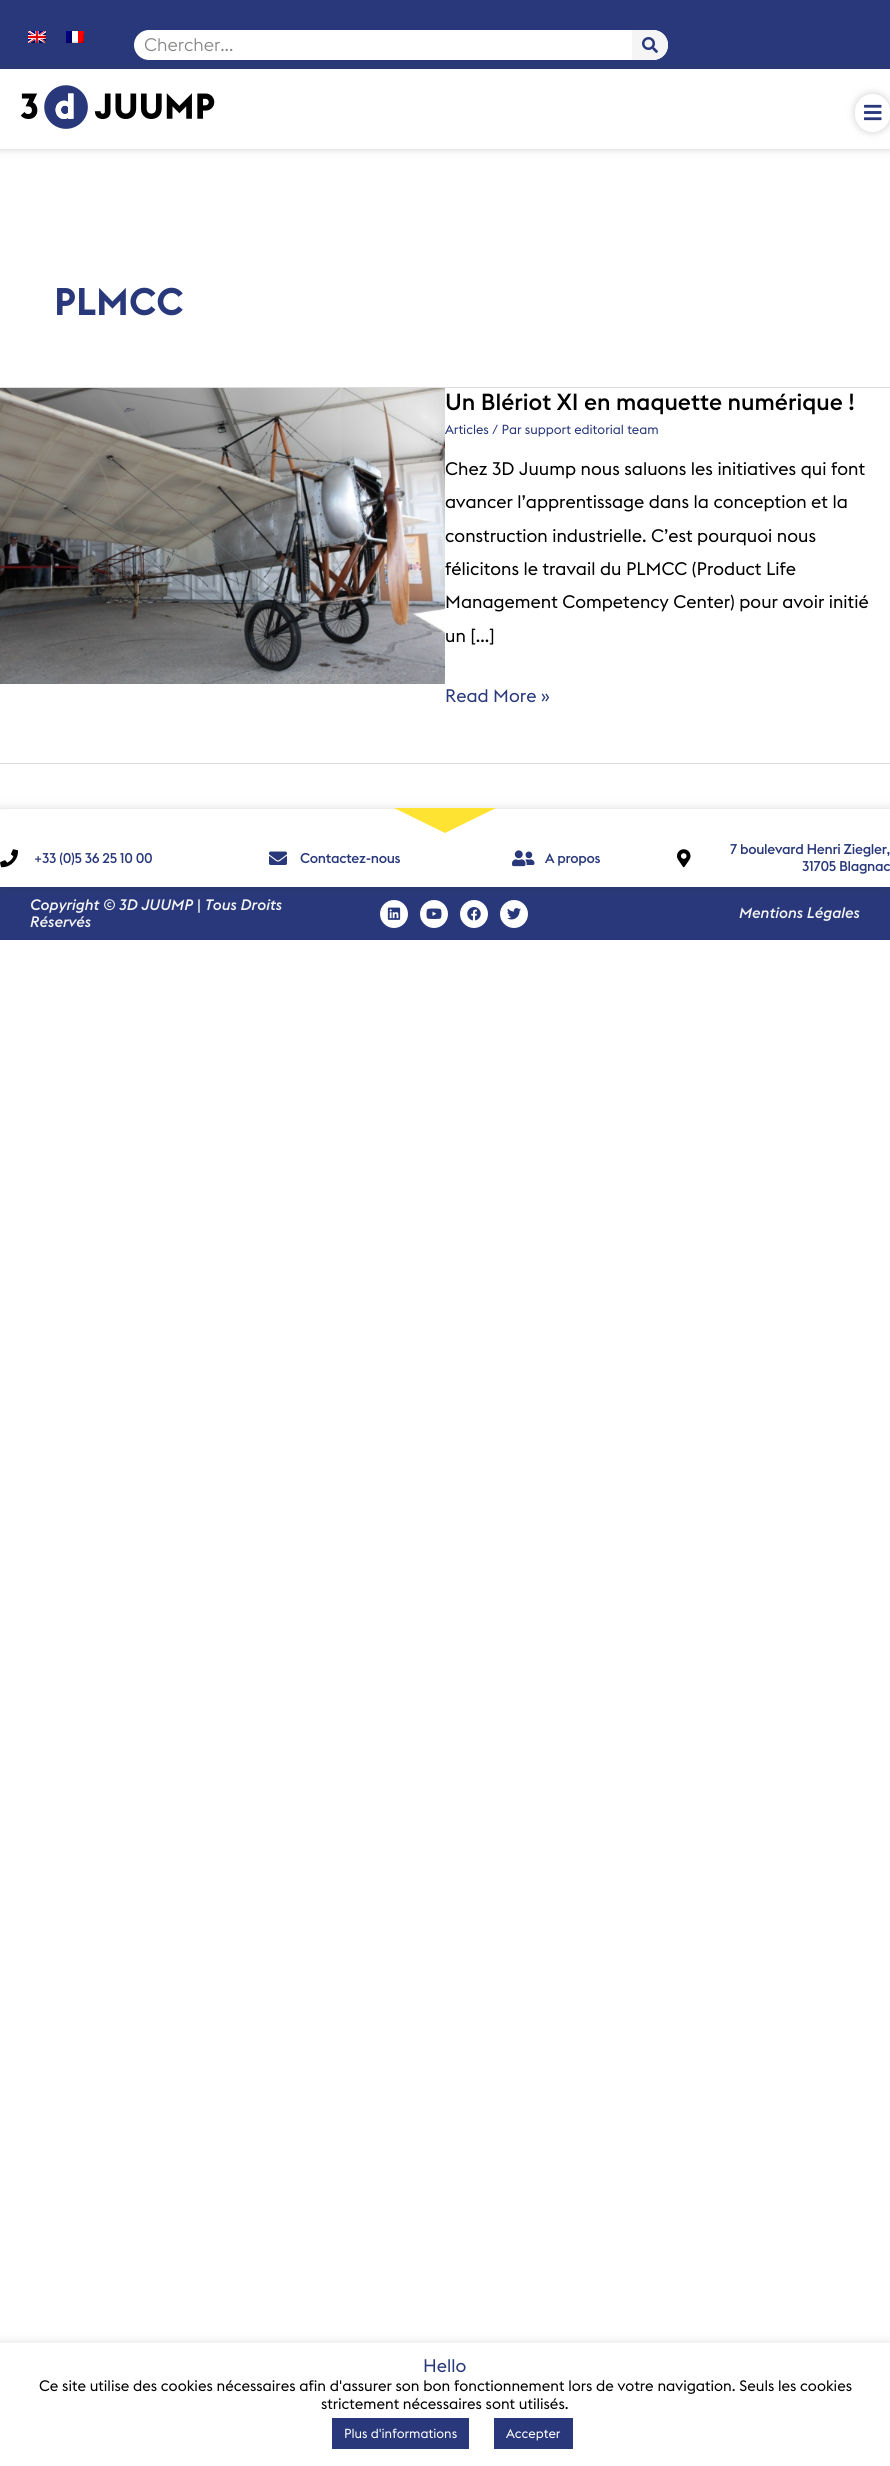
#include <cairo.h>
#include <math.h>
#include <stddef.h>

static cairo_t *c;
static void C(unsigned color){cairo_set_source_rgb(c, (color >> 16) / 255.0, (color >> 8 & 255) / 255.0, (color & 255) / 255.0);}
static void F(const char *family, double size, int italic, int bold){cairo_select_font_face(c, family, italic ? CAIRO_FONT_SLANT_ITALIC : CAIRO_FONT_SLANT_NORMAL,bold ? CAIRO_FONT_WEIGHT_BOLD : CAIRO_FONT_WEIGHT_NORMAL);cairo_set_font_size(c, size);}
static void T(double x, double y, const char *s){cairo_move_to(c, x, y);cairo_show_text(c, s);}
static void L(double x, double y, const char *s, double letter, double word){cairo_move_to(c, x, y);while (*s) {char ch[5] = {0};int n = 0;do ch[n++] = *s++; while ((*s & 0xC0) == 0x80);cairo_show_text(c, ch);cairo_rel_move_to(c, letter + word * (*ch == ' '), 0);}}
static void R(double x, double y, double w, double h){cairo_rectangle(c, x, y, w, h);cairo_fill(c);}
static void Q(double x, double y, double w, double h, double r){cairo_new_sub_path(c);cairo_arc(c, x + w - r, y + h - r, r, 0, M_PI / 2);cairo_arc(c, x + r, y + h - r, r, M_PI / 2, M_PI);cairo_arc(c, x + r, y + r, r, M_PI, 1.5 * M_PI);cairo_arc(c, x + w - r, y + r, r, 1.5 * M_PI, 2 * M_PI);cairo_close_path(c);}
static void S(double x, double y, double w, double h, double r, double blur, double alpha){cairo_push_group_with_content(c, CAIRO_CONTENT_ALPHA);cairo_set_operator(c, CAIRO_OPERATOR_SOURCE);for (int i = 15; i >= -15 && fmin(w, h) + blur * i / 3 > 0; i -= 2) {double e = blur * i / 6;cairo_set_source_rgba(c, 0, 0, 0, alpha * erfc((i - 1) / 8.5) / 2);Q(x - e, y - e, w + 2 * e, h + 2 * e, fmax(0, fmin(r + e + blur * .6, fmin(w, h) / 2 + e)));cairo_fill(c);}cairo_pattern_t *soft = cairo_pop_group(c);cairo_mask(c, soft);cairo_pattern_destroy(soft);}
static void I(const char *path, double x, double y, double w, double h){cairo_surface_t *image = cairo_image_surface_create_from_png(path);cairo_save(c);cairo_set_source_surface(c, image, x, y);cairo_rectangle(c, x, y, w, h);cairo_fill(c);cairo_restore(c);cairo_surface_destroy(image);}
int main(void) {
cairo_surface_t *surface = cairo_image_surface_create(CAIRO_FORMAT_RGB24, 890, 2466);
c = cairo_create(surface);
cairo_font_options_t *options = cairo_font_options_create();
cairo_font_options_set_hint_metrics(options, CAIRO_HINT_METRICS_OFF);
cairo_font_options_set_hint_style(options, CAIRO_HINT_STYLE_NONE);
cairo_set_font_options(c, options);
cairo_set_miter_limit(c, 4);
C(0xffffff);
cairo_paint(c);
C(0x28387a);
R(0,0,890,69);
I("1.png",28,31,18,12);
I("2.png",66,31,18,12);
C(0xffffff);
Q(134,30,534,30,15);
cairo_fill(c);
F("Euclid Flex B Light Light",18,0,0);
C(0x878986);
T(144,51,"Chercher...");
C(0xf5f5f5);
cairo_new_path(c);
cairo_move_to(c,632,30);
cairo_line_to(c,653,30);
cairo_curve_to(c,661.5,30,668,36.5,668,45);
cairo_curve_to(c,668,53.5,661.5,60,653,60);
cairo_line_to(c,632,60);
cairo_close_path(c);
cairo_fill(c);
I("3.png",642,37,16,16);
cairo_save(c);
cairo_set_fill_rule(c,CAIRO_FILL_RULE_EVEN_ODD);
cairo_new_path(c);
cairo_move_to(c,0,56);
cairo_line_to(c,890,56);
cairo_line_to(c,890,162);
cairo_line_to(c,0,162);
cairo_close_path(c);
cairo_move_to(c,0,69);
cairo_line_to(c,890,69);
cairo_line_to(c,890,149);
cairo_line_to(c,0,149);
cairo_close_path(c);
cairo_clip(c);
C(0x373a36);
S(-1,68,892,82,0,3.5,.2);
cairo_restore(c);
I("4.png",20,85,195,44);
C(0x373a36);
S(854,93,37,40,18.5,3.5,.2);
C(0xffffff);
Q(855,94,35,38,17.5);
cairo_fill(c);
I("5.png",864,104,18,17);
C(0xdddddd);
R(0,387,890,1);
F("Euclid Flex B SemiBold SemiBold",38,0,0);
C(0x28387a);
T(54,315,"PLMCC");
C(0xdddddd);
R(0,763,890,1);
I("6.png",0,388,445,296);
F("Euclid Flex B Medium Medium",23,0,0);
C(0x000000);
T(445,410,"Un Blériot XI en maquette numérique !");
F("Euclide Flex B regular",13,0,0);
C(0x28387a);
T(445,434,"Articles / Par support editorial team");
F("Euclide Flex B regular",18,0,0);
C(0x000000);
T(445,475,"Chez 3D Juump nous saluons les initiatives qui font");
T(445,508,"avancer l’apprentissage dans la conception et la");
T(445,542,"construction industrielle. C’est pourquoi nous");
T(445,575,"félicitons le travail du PLMCC (Product Life");
T(445,608,"Management Competency Center) pour avoir initié");
T(445,642,"un […]");
C(0x28387a);
T(445,702,"Read More »");
R(0,887,890,53);
C(0xffffff);
cairo_new_path(c);
cairo_arc(c,394,914,14,0,2 * M_PI);
cairo_fill(c);
cairo_arc(c,434,914,14,0,2 * M_PI);
cairo_fill(c);
cairo_arc(c,474,914,14,0,2 * M_PI);
cairo_fill(c);
cairo_arc(c,514,914,14,0,2 * M_PI);
cairo_fill(c);
cairo_save(c);
cairo_set_fill_rule(c,CAIRO_FILL_RULE_EVEN_ODD);
cairo_new_path(c);
cairo_move_to(c,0,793);
cairo_line_to(c,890,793);
cairo_line_to(c,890,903);
cairo_line_to(c,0,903);
cairo_close_path(c);
cairo_move_to(c,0,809);
cairo_line_to(c,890,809);
cairo_line_to(c,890,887);
cairo_line_to(c,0,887);
cairo_close_path(c);
cairo_clip(c);
C(0x373a36);
S(0,809,890,78,0,5,.2);
cairo_restore(c);
C(0xffe333);
cairo_new_path(c);
cairo_move_to(c,445,833);
cairo_line_to(c,394,808);
cairo_line_to(c,496,808);
cairo_close_path(c);
cairo_fill(c);
I("7.png",0,849,18,19);
F("Euclid Flex B Medium Medium",14,0,0);
C(0x28387a);
L(34,863,"+33 (0)5 36 25 10 00",-.3,0);
I("8.png",269,851,18,14);
L(300,863,"Contactez-nous",-.3,0);
I("9.png",512,850,23,17);
L(545,863,"A propos",-.3,0);
I("10.png",677,849,14,19);
L(730,854,"7 boulevard Henri Ziegler,",-.3,0);
L(802,871,"31705 Blagnac",-.3,0);
F("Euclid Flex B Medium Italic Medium",15,1,0);
C(0xf5f5f5);
T(30,910,"Copyright © 3D JUUMP | Tous Droits");
T(30,927,"Réservés");
I("11.png",387,907,14,13);
I("12.png",426,908,16,11);
I("13.png",467,907,14,14);
I("14.png",507,908,14,12);
T(739,918,"Mentions Légales");
cairo_save(c);
cairo_rectangle(c,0,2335,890,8);
cairo_clip(c);
C(0xacabab);
S(0,2342,890,123,0,5,.3);
cairo_restore(c);
F("Euclide Flex B regular",18,0,0);
C(0x28387a);
T(423,2372,"Hello");
F("Euclide Flex B regular",15,0,0);
C(0x000000);
T(39,2391,"Ce site utilise des cookies nécessaires afin d'assurer son bon fonctionnement lors de votre navigation. Seuls les cookies");
T(321,2409,"strictement nécessaires sont utilisés.");
C(0x28387a);
R(332,2418,137,31);
F("Euclide Flex B regular",13,0,0);
C(0xffffff);
T(344,2438,"Plus d'informations");
C(0x28387a);
R(494,2418,79,31);
C(0xffffff);
T(506,2438,"Accepter");
cairo_surface_write_to_png(surface, "o.png");
cairo_font_options_destroy(options);
cairo_destroy(c);
cairo_surface_destroy(surface);
return 0;
}
